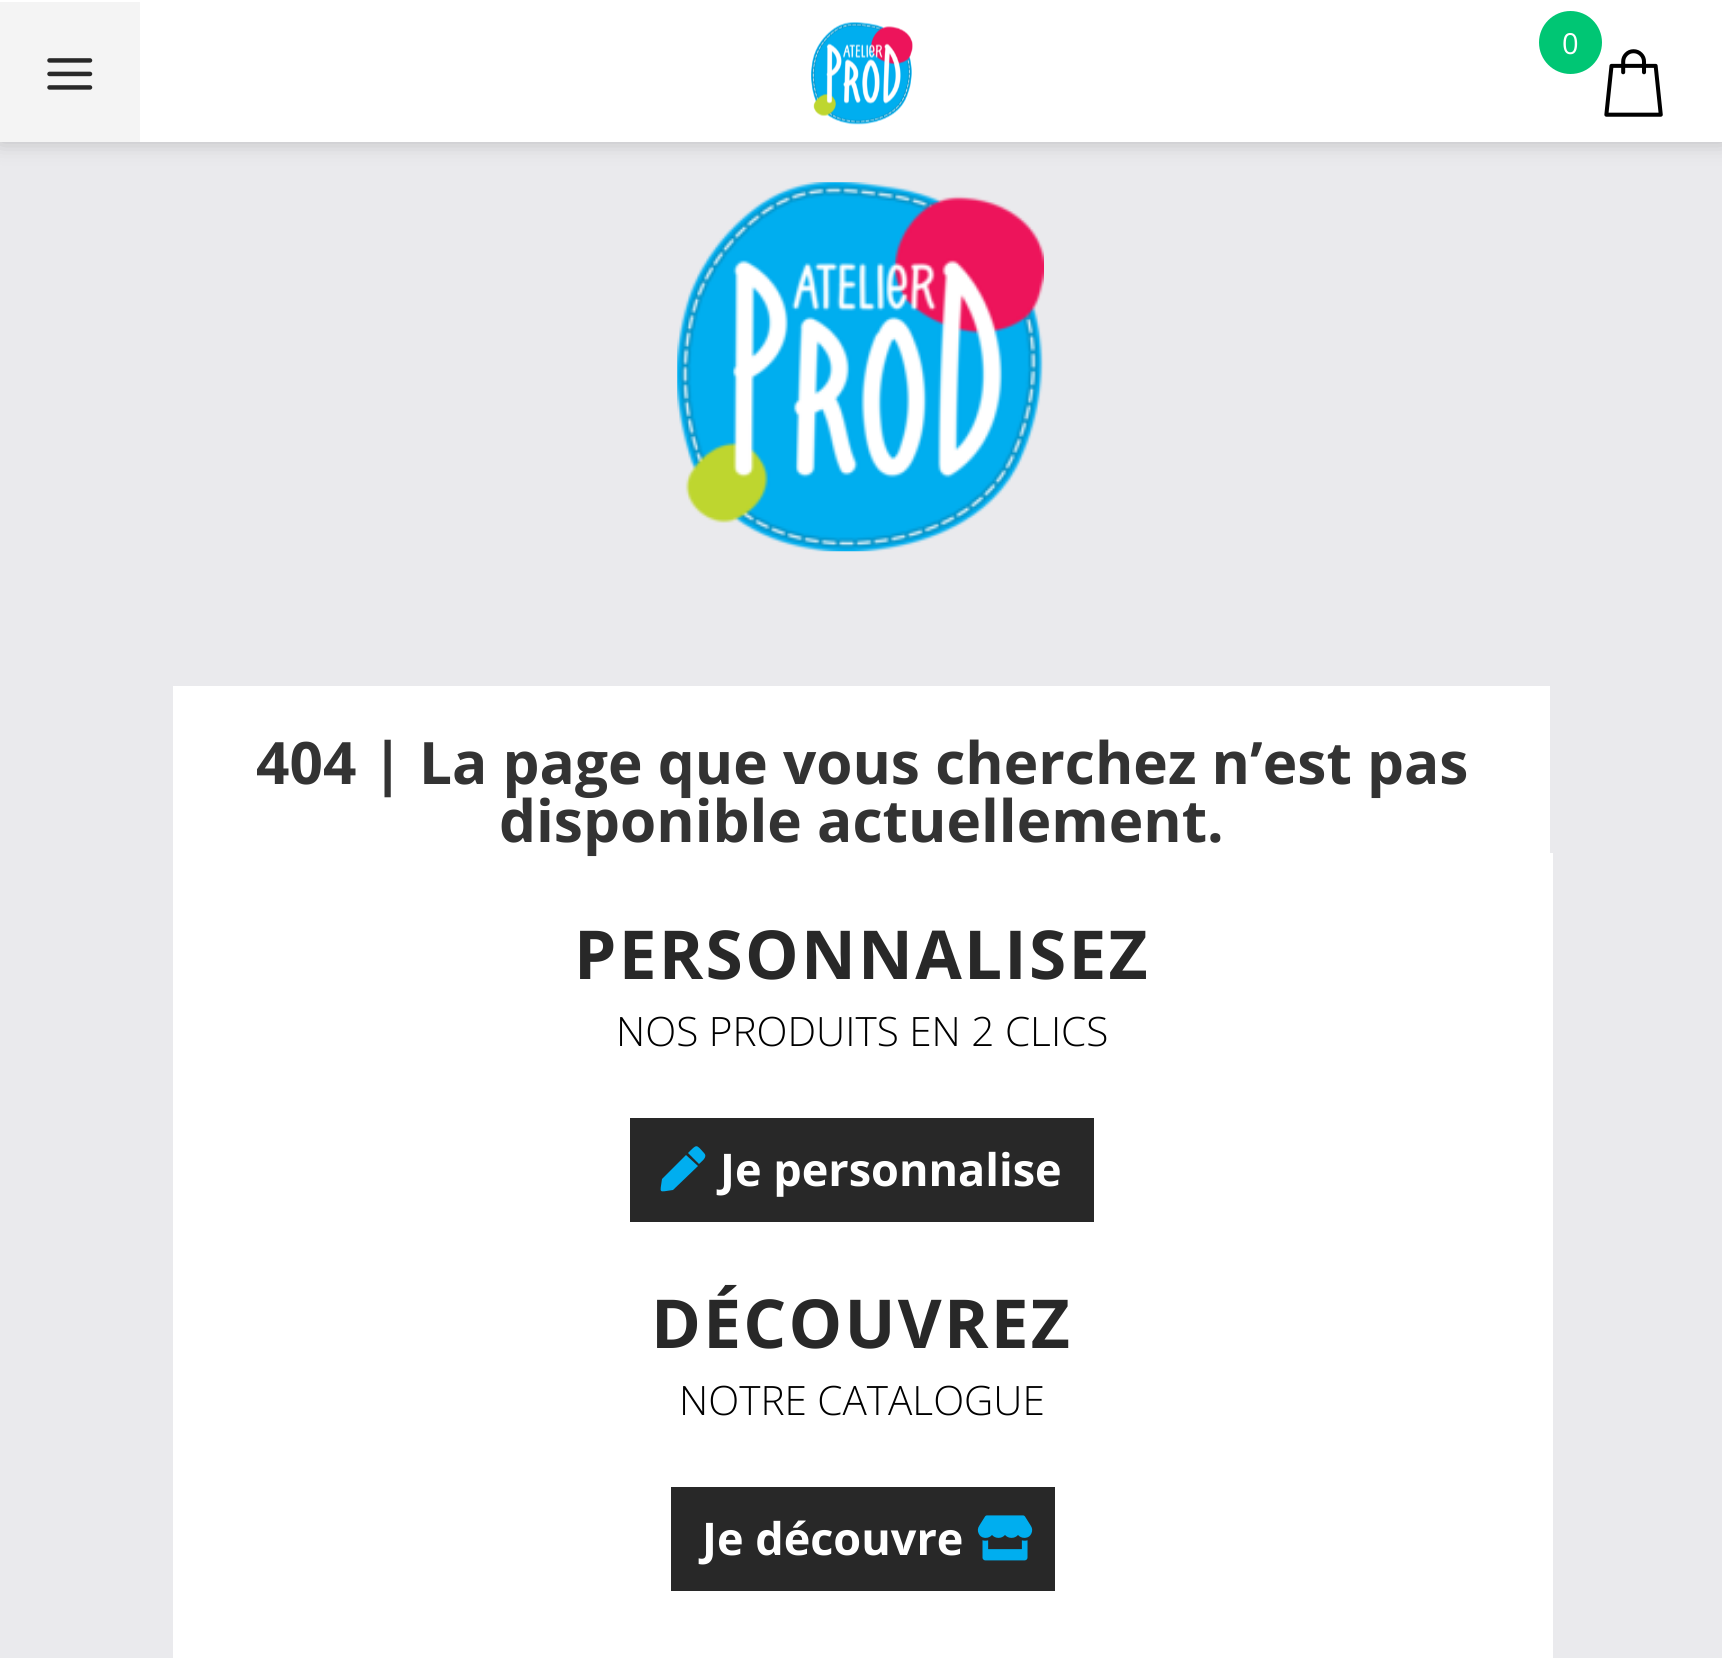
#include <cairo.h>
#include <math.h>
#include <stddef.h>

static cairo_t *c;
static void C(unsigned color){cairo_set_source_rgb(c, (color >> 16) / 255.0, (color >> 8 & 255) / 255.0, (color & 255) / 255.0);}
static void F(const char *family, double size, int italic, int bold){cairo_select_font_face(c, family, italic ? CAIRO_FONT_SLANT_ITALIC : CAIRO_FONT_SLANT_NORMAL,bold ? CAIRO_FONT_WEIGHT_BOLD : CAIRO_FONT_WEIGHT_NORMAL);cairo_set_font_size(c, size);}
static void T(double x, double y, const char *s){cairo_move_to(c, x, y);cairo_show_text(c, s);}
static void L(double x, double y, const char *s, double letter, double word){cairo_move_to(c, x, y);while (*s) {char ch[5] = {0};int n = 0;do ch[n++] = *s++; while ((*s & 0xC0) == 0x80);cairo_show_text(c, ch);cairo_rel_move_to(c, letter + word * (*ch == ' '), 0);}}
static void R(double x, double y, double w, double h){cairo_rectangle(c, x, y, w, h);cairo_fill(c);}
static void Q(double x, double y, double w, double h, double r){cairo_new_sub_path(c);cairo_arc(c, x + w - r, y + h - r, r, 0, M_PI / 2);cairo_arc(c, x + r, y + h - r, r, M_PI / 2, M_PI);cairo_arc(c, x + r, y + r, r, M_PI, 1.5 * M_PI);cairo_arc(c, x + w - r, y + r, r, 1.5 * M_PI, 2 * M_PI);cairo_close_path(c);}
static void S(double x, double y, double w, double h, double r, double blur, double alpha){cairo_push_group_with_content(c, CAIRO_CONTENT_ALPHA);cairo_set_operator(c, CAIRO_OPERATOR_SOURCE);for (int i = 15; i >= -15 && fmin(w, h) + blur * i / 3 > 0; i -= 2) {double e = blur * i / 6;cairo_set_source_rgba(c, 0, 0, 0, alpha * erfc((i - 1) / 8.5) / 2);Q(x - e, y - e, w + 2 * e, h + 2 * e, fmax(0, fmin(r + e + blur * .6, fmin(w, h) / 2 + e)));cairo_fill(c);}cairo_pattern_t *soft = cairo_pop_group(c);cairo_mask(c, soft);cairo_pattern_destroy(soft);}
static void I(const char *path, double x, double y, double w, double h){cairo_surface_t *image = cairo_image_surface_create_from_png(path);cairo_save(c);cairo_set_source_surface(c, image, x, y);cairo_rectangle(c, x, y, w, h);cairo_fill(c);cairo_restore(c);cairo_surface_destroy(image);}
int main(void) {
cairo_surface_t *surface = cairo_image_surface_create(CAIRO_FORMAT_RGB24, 1722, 1658);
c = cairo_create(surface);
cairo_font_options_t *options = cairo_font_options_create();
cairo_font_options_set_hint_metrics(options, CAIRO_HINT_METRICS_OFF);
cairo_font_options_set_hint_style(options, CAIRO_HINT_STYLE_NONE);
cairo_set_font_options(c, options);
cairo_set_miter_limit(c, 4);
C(0xeaeaed);
cairo_paint(c);
C(0x000000);
S(0,0,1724,142,0,11,.21);
C(0xffffff);
R(0,0,1722,142);
C(0x00c674);
cairo_arc(c,1570.5,42.5,31.5,0,2 * M_PI);
cairo_fill(c);
F("Open Sans",29,0,0);
C(0xffffff);
T(1562,54,"0");
I("1.png",1604,49,59,68);
C(0xf4f4f4);
R(0,2,140,140);
I("2.png",47,58,46,32);
I("3.png",811,22,102,103);
I("4.png",677,182,367,370);
C(0xffffff);
R(173,686,1377,167);
F("Open Sans",58.5,0,1);
C(0x333333);
T(256,784,"404 | La page que vous cherchez n’est pas");
C(0xffffff);
R(173,853,1380,805);
C(0x333333);
T(499,842,"disponible actuellement.");
F("Open Sans",67.5,0,1);
C(0x282828);
L(574,979,"PERSONNALISEZ",2.25,0);
F("Open Sans Light",40.5,0,0);
C(0x000000);
T(616,1046,"NOS PRODUITS EN 2 CLICS");
C(0x282828);
R(630,1118,464,104);
C(0x00aeef);
cairo_new_path(c);
cairo_move_to(c,686,1155);
cairo_line_to(c,698,1166);
cairo_line_to(c,673,1190);
cairo_curve_to(c,658,1192,660,1194,662,1179);
cairo_close_path(c);
cairo_move_to(c,704,1153);
cairo_curve_to(c,708,1157,702,1161,699,1164);
cairo_line_to(c,688,1153);
cairo_curve_to(c,697,1144,696,1144,704,1153);
cairo_close_path(c);
cairo_fill(c);
F("Open Sans",45,0,1);
C(0xffffff);
T(720,1186,"Je personnalise");
F("Open Sans",67.5,0,1);
C(0x282828);
L(651,1348,"DÉCOUVREZ",2.25,0);
F("Open Sans Light",40.5,0,0);
C(0x000000);
T(679,1415,"NOTRE CATALOGUE");
C(0x282828);
R(671,1487,384,104);
F("Open Sans",45,0,1);
C(0xffffff);
T(702,1555,"Je découvre");
I("5.png",977,1515,56,46);
cairo_surface_write_to_png(surface, "o.png");
cairo_font_options_destroy(options);
cairo_destroy(c);
cairo_surface_destroy(surface);
return 0;
}
